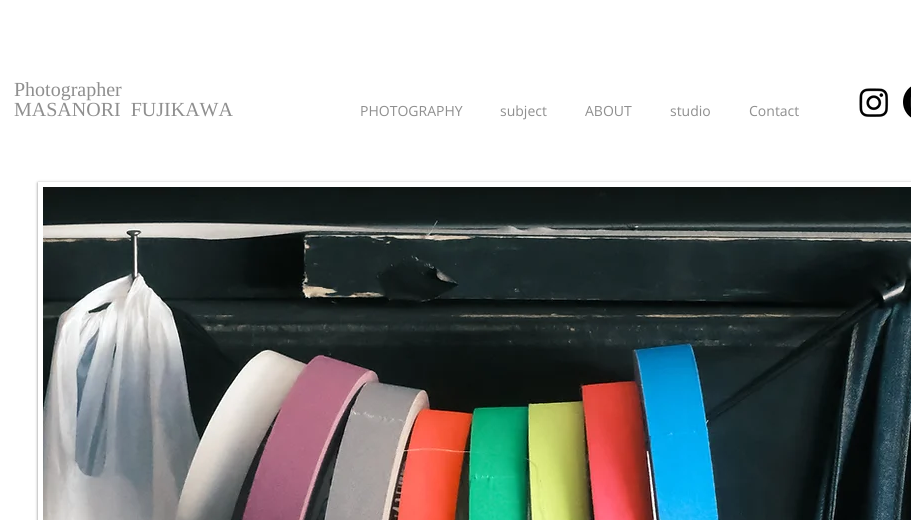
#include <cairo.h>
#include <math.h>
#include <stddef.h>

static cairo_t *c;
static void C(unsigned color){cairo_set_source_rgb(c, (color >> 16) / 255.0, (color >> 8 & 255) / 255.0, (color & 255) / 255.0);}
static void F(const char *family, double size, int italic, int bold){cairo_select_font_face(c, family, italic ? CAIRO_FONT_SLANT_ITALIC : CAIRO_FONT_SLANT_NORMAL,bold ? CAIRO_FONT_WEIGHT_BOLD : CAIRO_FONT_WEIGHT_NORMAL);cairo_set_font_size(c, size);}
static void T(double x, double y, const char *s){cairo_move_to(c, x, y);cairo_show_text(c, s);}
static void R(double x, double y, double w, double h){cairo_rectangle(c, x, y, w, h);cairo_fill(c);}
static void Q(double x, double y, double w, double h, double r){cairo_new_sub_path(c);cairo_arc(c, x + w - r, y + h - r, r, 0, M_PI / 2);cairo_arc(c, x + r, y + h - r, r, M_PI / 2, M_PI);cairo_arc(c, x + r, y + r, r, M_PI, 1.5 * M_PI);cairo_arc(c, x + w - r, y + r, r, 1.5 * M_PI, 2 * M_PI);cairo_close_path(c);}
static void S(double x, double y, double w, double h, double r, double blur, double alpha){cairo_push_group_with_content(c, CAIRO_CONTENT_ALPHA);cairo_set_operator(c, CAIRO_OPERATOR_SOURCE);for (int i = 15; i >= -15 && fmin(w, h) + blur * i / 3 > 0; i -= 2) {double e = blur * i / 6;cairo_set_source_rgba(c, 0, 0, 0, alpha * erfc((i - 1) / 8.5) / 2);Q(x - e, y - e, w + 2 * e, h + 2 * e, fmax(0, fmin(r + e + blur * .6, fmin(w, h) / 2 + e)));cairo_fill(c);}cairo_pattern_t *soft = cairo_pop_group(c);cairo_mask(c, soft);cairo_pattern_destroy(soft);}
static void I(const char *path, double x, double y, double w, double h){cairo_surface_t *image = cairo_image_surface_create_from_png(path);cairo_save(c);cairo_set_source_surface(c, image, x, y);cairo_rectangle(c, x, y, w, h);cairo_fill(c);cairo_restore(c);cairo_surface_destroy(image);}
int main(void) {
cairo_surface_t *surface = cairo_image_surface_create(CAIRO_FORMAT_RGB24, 911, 520);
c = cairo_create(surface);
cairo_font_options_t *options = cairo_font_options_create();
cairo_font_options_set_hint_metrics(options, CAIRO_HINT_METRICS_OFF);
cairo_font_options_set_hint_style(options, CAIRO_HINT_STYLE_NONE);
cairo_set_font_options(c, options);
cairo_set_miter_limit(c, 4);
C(0xffffff);
cairo_paint(c);
F("Liberation Serif",20,0,0);
C(0x8f8f8f);
T(14,96,"Photographer");
T(14,116,"MASANORI  FUJIKAWA");
F("Open Sans",14,0,0);
T(360,116,"PHOTOGRAPHY");
T(500,116,"subject");
T(585,116,"ABOUT");
T(670,116,"studio");
T(749,116,"Contact");
I("1.png",859,88,30,29);
I("2.png",903,86,8,32);
C(0x000000);
S(38,183,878,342,0,1.5,.5);
C(0xffffff);
R(38,182,873,338);
I("3.png",43,187,868,333);
cairo_surface_write_to_png(surface, "o.png");
cairo_font_options_destroy(options);
cairo_destroy(c);
cairo_surface_destroy(surface);
return 0;
}
